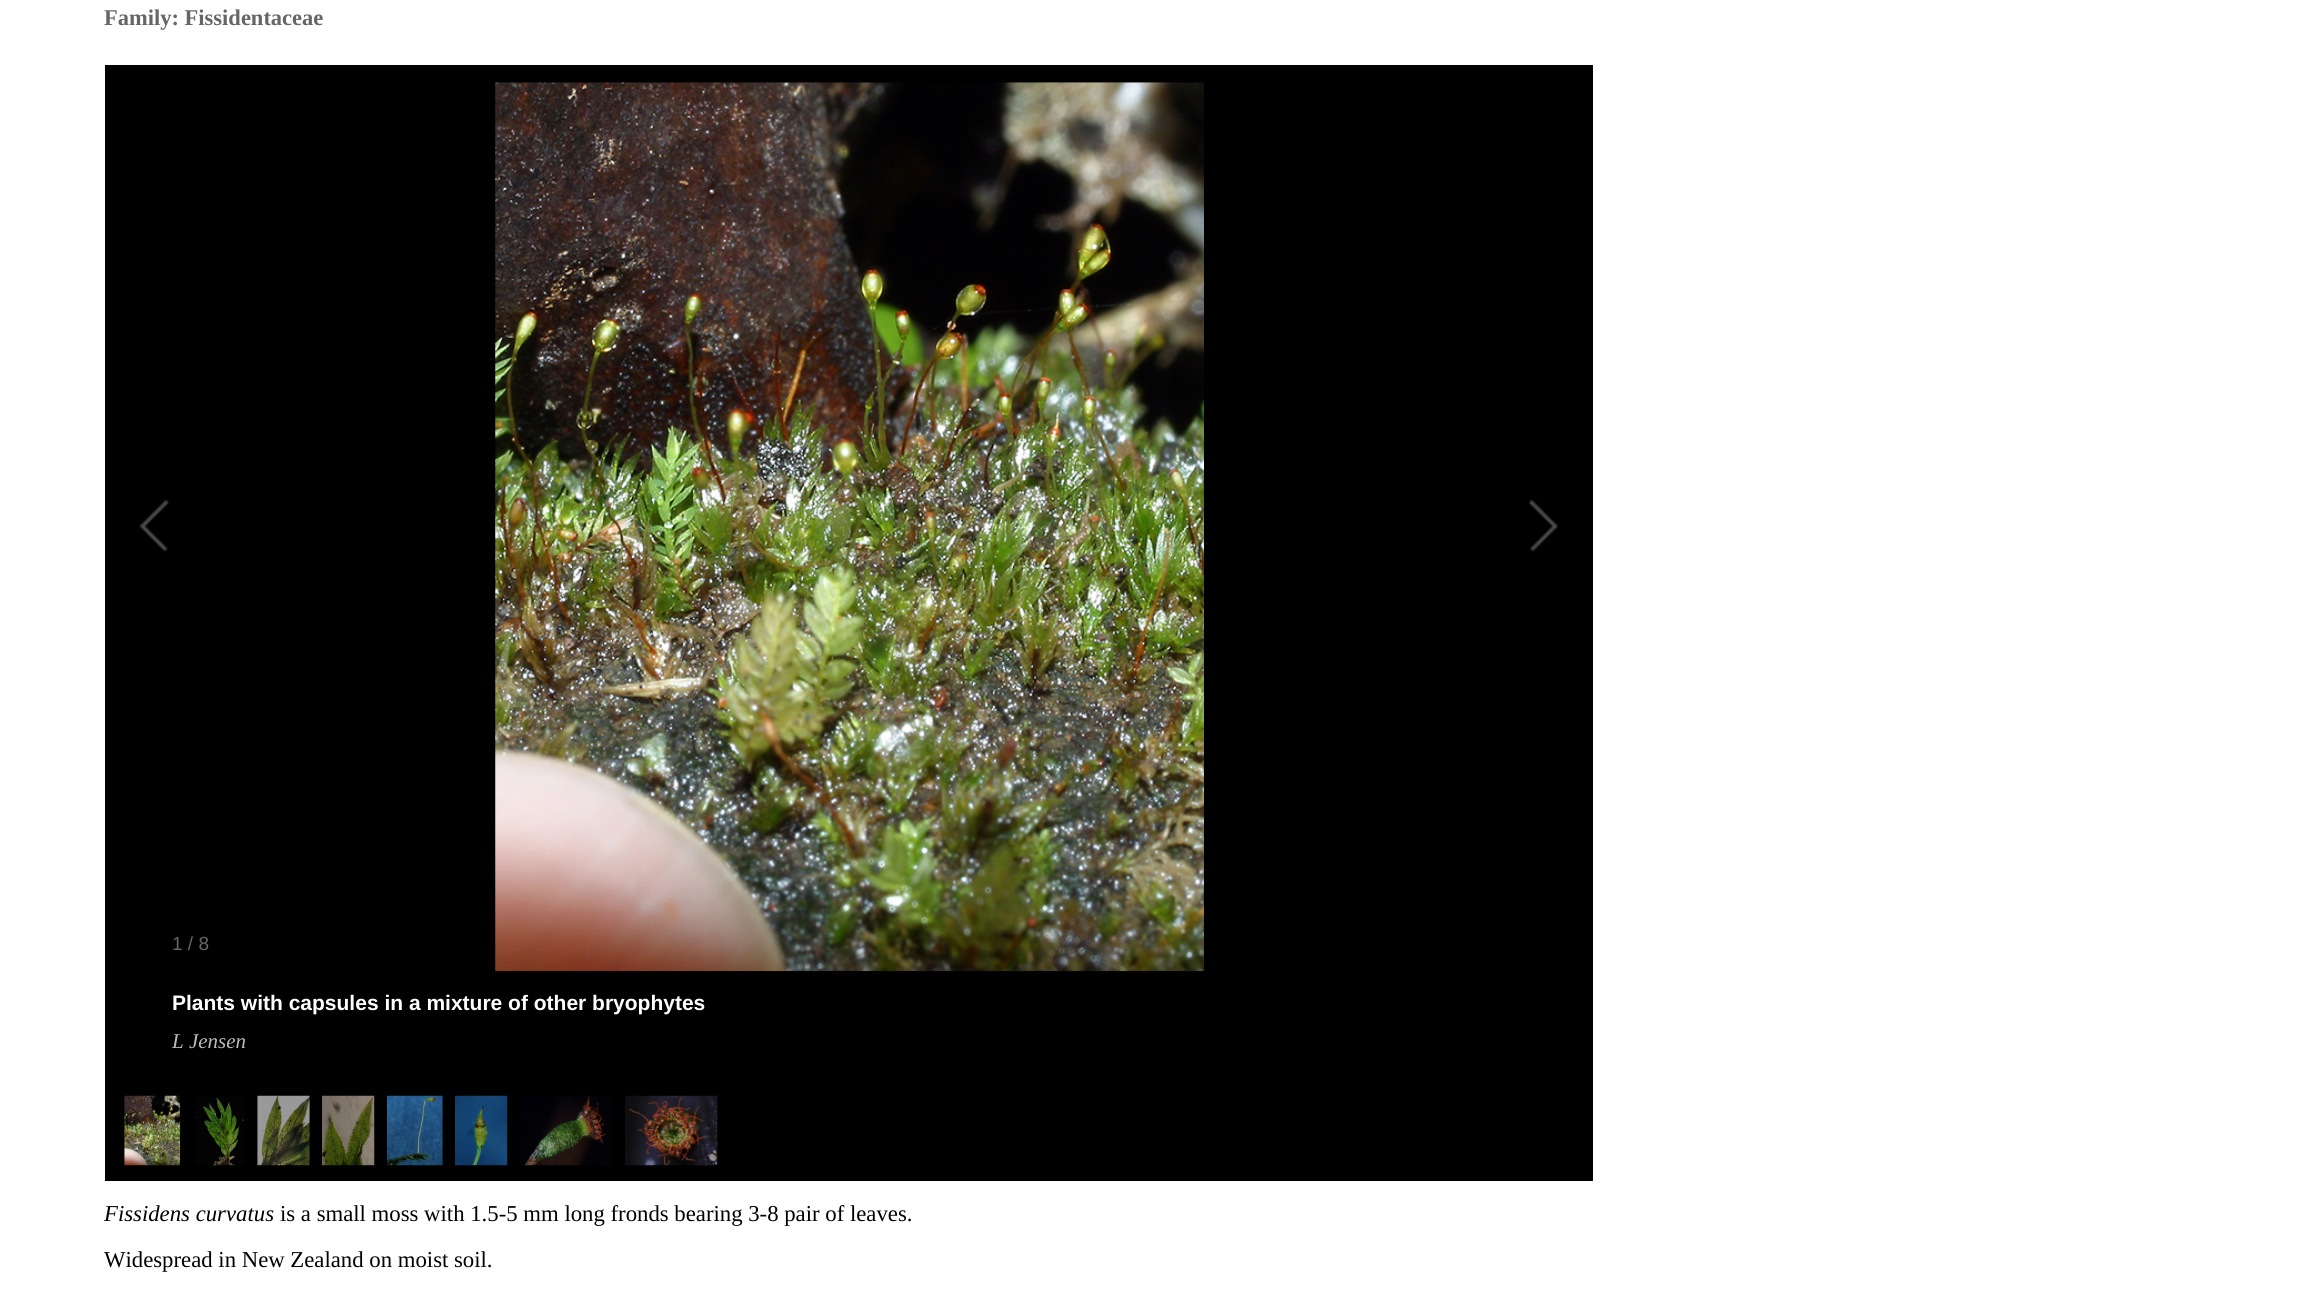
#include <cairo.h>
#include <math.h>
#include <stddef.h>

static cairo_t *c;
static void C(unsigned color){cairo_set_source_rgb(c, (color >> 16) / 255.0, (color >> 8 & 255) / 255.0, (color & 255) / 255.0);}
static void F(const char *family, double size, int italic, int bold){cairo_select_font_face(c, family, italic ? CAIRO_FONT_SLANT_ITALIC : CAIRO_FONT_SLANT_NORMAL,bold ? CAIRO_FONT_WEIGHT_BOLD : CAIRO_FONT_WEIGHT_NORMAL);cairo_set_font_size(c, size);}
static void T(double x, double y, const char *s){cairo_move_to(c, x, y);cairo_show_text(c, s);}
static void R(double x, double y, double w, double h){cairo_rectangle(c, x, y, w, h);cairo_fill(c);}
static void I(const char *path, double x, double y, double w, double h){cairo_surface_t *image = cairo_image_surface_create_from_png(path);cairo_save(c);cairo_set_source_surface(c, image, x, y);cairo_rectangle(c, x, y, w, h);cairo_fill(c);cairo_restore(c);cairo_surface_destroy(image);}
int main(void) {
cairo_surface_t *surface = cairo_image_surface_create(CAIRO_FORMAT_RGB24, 2308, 1297);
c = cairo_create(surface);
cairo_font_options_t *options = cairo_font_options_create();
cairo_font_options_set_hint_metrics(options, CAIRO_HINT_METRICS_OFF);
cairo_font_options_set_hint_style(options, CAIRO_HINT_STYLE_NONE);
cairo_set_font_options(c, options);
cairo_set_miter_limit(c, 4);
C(0xffffff);
cairo_paint(c);
F("Liberation Serif",22.5,0,1);
C(0x666666);
T(104,25,"Family: Fissidentaceae");
C(0x000000);
R(105,65,1488,1116);
I("1.png",495,82,709,890);
I("2.png",140,500,29,52);
I("3.png",1529,500,29,52);
F("Liberation Sans",19,0,0);
C(0x666666);
T(172,950,"1 / 8");
F("Liberation Sans",21,0,1);
C(0xffffff);
T(172,1010,"Plants with capsules in a mixture of other bryophytes");
F("Liberation Serif",21,1,0);
C(0xbbbbbb);
T(172,1048,"L Jensen");
I("4.png",124,1095,57,71);
I("5.png",196,1097,48,69);
I("6.png",257,1095,53,71);
I("7.png",322,1095,53,71);
I("8.png",386,1095,57,71);
I("9.png",455,1095,53,71);
I("10.png",520,1096,92,70);
I("11.png",625,1095,93,71);
F("Liberation Serif",22.75,1,0);
C(0x000000);
T(104,1221,"Fissidens curvatus");
F("Liberation Serif",22.75,0,0);
T(280,1221,"is a small moss with 1.5-5 mm long fronds bearing 3-8 pair of leaves.");
T(104,1267,"Widespread in New Zealand on moist soil.");
cairo_surface_write_to_png(surface, "o.png");
cairo_font_options_destroy(options);
cairo_destroy(c);
cairo_surface_destroy(surface);
return 0;
}
